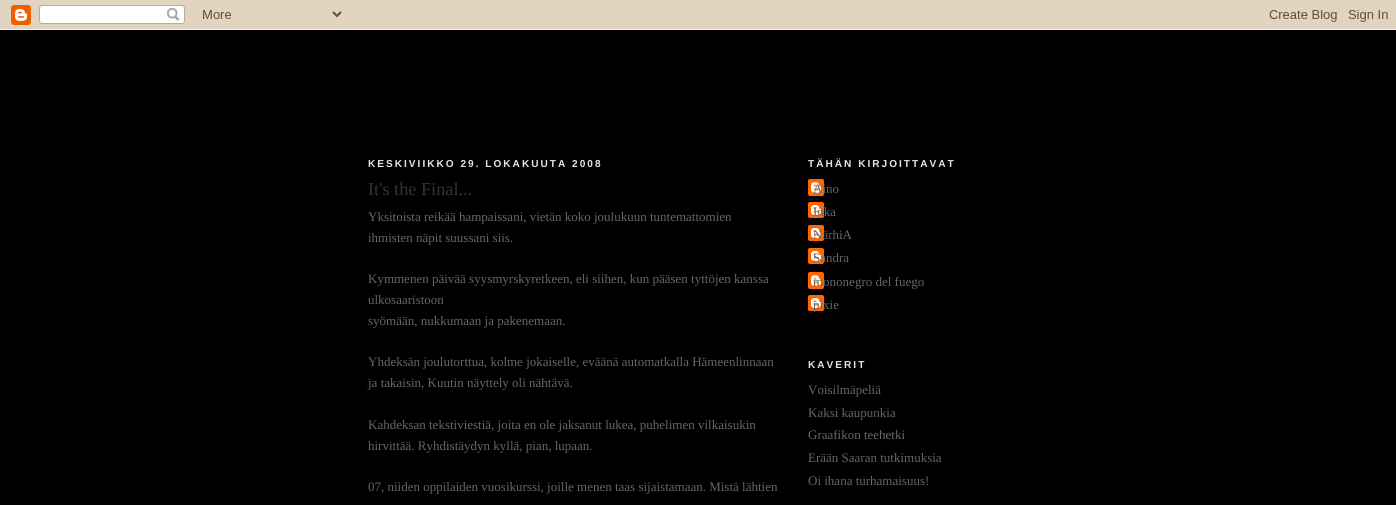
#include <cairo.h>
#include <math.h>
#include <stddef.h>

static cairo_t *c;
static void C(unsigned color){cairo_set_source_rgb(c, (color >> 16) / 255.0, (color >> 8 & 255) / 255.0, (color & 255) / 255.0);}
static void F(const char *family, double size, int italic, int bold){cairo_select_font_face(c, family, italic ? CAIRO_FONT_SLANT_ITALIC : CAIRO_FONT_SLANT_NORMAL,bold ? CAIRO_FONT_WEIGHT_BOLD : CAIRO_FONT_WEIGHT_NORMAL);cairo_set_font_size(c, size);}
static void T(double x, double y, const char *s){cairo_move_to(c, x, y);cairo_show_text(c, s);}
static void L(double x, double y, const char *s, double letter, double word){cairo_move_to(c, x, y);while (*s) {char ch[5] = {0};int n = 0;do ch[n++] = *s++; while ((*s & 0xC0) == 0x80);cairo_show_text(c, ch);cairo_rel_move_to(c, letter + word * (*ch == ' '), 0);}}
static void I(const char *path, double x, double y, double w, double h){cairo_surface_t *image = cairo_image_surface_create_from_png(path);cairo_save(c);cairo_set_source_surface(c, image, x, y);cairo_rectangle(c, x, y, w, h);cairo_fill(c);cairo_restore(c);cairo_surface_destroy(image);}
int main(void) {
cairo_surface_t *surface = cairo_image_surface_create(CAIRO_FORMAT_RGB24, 1396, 505);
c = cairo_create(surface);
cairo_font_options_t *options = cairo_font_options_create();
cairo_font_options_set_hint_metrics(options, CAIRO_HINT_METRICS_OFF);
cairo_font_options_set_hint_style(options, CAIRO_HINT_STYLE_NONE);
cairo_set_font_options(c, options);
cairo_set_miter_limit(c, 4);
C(0x000000);
cairo_paint(c);
I("1.png",0,0,1396,30);
F("Liberation Sans",10.1,0,1);
C(0xe6e6e6);
L(368,167,"KESKIVIIKKO 29. LOKAKUUTA 2008",2,0);
F("Liberation Serif",18.25,0,0);
C(0x333333);
T(368,195,"It's the Final...");
F("Liberation Serif",13,0,0);
C(0x666666);
T(368,221,"Yksitoista reikää hampaissani, vietän koko joulukuun tuntemattomien");
T(368,242,"ihmisten näpit suussani siis.");
T(368,283,"Kymmenen päivää syysmyrskyretkeen, eli siihen, kun pääsen tyttöjen kanssa");
T(368,304,"ulkosaaristoon");
T(368,325,"syömään, nukkumaan ja pakenemaan.");
T(368,366,"Yhdeksän joulutorttua, kolme jokaiselle, eväänä automatkalla Hämeenlinnaan");
T(368,387,"ja takaisin, Kuutin näyttely oli nähtävä.");
T(368,429,"Kahdeksan tekstiviestiä, joita en ole jaksanut lukea, puhelimen vilkaisukin");
T(368,450,"hirvittää. Ryhdistäydyn kyllä, pian, lupaan.");
T(368,491,"07, niiden oppilaiden vuosikurssi, joille menen taas sijaistamaan. Mistä lähtien");
F("Liberation Sans",10.1,0,1);
C(0xe6e6e6);
L(808,167,"TÄHÄN KIRJOITTAVAT",2,0);
I("2.png",808,179,16,17);
F("Liberation Serif",13,0,0);
C(0x666666);
T(813,193,"Aino");
I("3.png",808,202,16,16);
T(813,216,"Inka");
I("3.png",808,225,16,16);
T(813,239,"NärhiA");
I("3.png",808,248,16,16);
T(813,262,"Sandra");
I("2.png",808,272,16,17);
T(813,286,"mononegro del fuego");
I("3.png",808,295,16,16);
T(813,309,"pixie");
F("Liberation Sans",10.1,0,1);
C(0xe6e6e6);
L(808,368,"KAVERIT",2,0);
F("Liberation Serif",13,0,0);
C(0x666666);
T(808,394,"Voisilmäpeliä");
T(808,417,"Kaksi kaupunkia");
T(808,439,"Graafikon teehetki");
T(808,462,"Erään Saaran tutkimuksia");
T(808,485,"Oi ihana turhamaisuus!");
cairo_surface_write_to_png(surface, "o.png");
cairo_font_options_destroy(options);
cairo_destroy(c);
cairo_surface_destroy(surface);
return 0;
}
